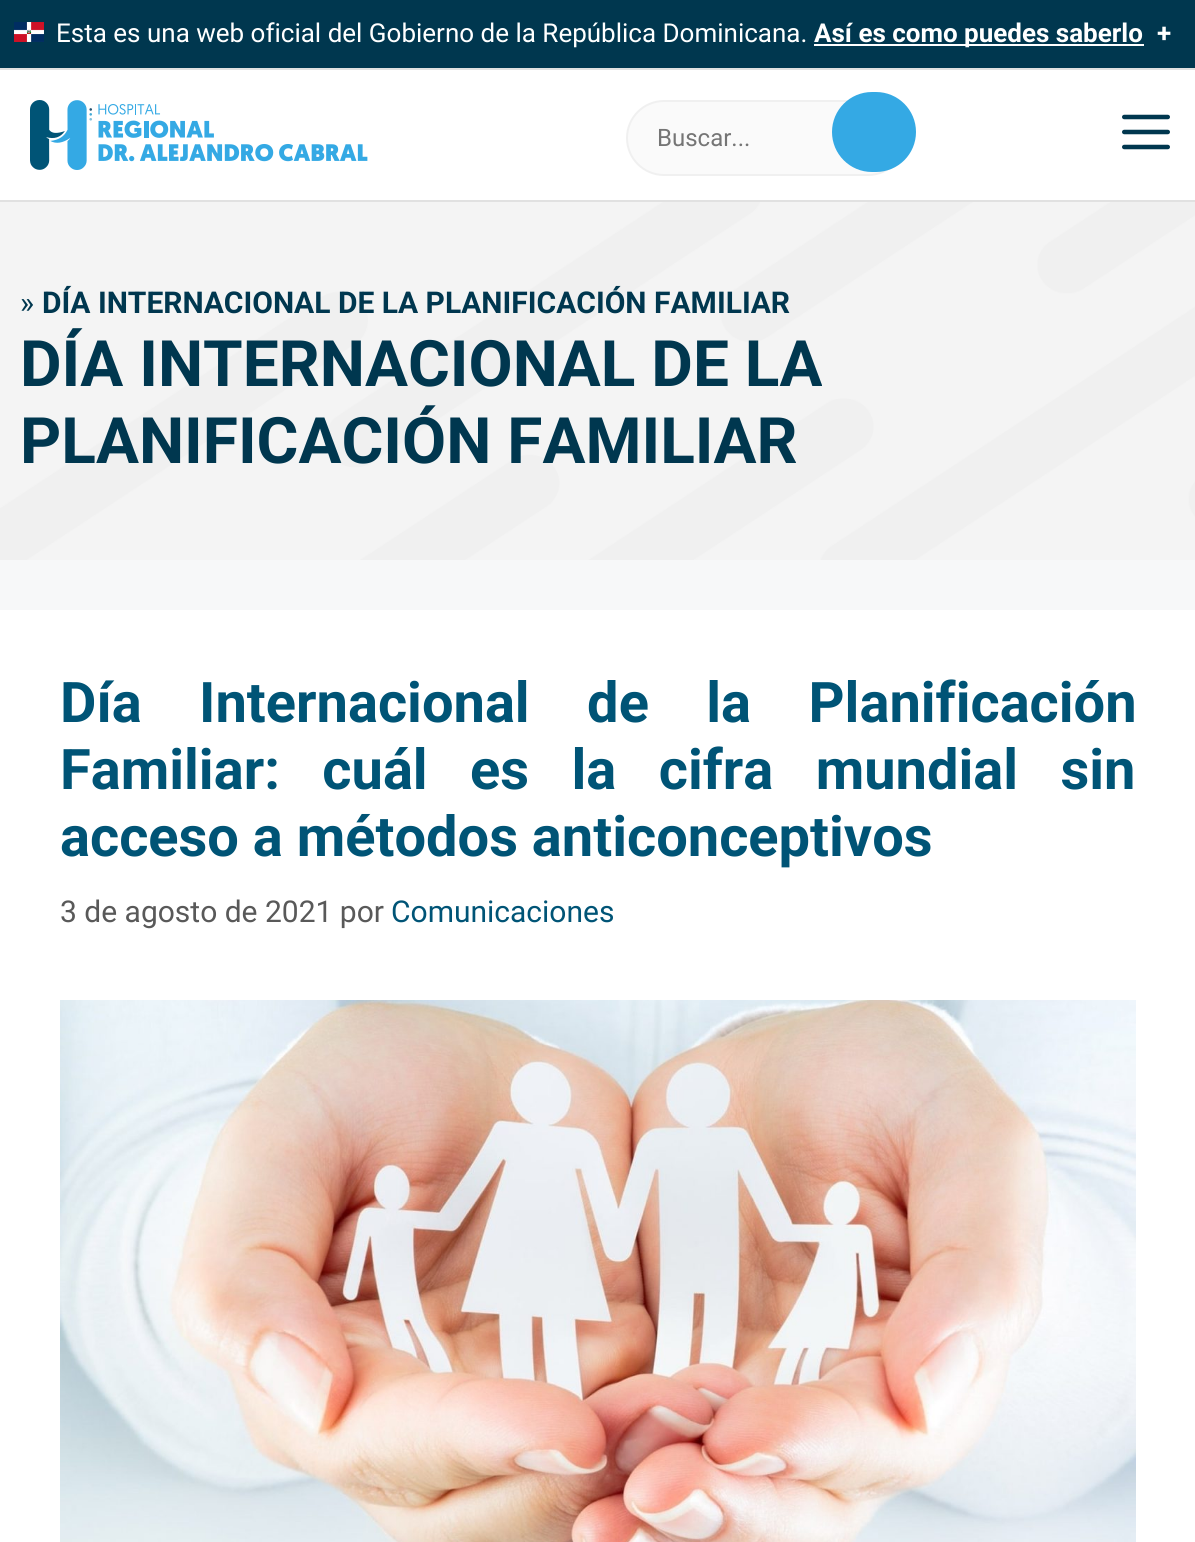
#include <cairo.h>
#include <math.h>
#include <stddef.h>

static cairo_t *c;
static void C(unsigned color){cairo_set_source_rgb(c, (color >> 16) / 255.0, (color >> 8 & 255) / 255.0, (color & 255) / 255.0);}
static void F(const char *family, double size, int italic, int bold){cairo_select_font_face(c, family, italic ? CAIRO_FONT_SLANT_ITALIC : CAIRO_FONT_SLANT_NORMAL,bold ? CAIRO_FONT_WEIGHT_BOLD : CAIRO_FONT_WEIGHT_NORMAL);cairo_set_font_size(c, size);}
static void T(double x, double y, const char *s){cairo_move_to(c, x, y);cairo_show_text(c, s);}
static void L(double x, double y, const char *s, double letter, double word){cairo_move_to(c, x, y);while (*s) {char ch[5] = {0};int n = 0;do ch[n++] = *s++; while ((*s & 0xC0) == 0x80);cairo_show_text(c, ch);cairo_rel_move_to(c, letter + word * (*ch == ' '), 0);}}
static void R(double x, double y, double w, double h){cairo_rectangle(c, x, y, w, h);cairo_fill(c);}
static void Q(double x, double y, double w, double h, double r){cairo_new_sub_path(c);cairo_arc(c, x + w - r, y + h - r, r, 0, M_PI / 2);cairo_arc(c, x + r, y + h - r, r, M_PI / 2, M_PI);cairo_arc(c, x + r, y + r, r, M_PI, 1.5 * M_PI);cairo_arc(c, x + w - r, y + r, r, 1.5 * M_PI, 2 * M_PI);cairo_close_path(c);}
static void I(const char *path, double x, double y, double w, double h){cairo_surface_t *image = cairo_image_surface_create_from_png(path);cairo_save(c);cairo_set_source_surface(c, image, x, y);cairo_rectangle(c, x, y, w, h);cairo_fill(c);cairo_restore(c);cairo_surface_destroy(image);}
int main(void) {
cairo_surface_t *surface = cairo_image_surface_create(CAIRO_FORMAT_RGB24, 1195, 1542);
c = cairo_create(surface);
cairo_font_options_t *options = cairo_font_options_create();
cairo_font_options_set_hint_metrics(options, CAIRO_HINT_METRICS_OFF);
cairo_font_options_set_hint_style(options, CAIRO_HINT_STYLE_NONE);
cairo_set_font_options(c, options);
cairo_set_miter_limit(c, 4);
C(0xf7f8f9);
cairo_paint(c);
C(0x00374f);
R(0,0,1195,68);
I("1.png",14,22,30,20);
F("Roboto",26,0,0);
C(0xffffff);
T(56,42,"Esta es una web oficial del Gobierno de la República Dominicana.");
R(814,44,330,2);
F("Roboto",26,0,1);
T(814,42,"Así es como puedes saberlo");
T(1157,42,"+");
R(0,70,1195,130);
C(0xe1e1e1);
R(0,68,1195,2);
R(0,200,1195,2);
I("2.png",30,100,338,70);
C(0xfafafa);
Q(627,101,278,74,37);
cairo_fill_preserve(c);
C(0xf0f0f0);
cairo_stroke(c);
F("Roboto",24,0,0);
C(0x757575);
T(657,146,"Buscar...");
C(0x34a9e4);
Q(832,92,84,80,40);
cairo_fill(c);
I("3.png",1122,114,48,36);
I("4.png",0,202,1195,358);
F("Roboto",30,0,0);
C(0x00374f);
T(20,313,"»");
F("Roboto",30,0,1);
T(42,313,"DÍA INTERNACIONAL DE LA PLANIFICACIÓN FAMILIAR");
F("Roboto",64,0,1);
T(20,386,"DÍA INTERNACIONAL DE LA");
T(20,463,"PLANIFICACIÓN FAMILIAR");
C(0xffffff);
R(0,610,1195,932);
F("Roboto",56,0,1);
C(0x005476);
L(60,722,"Día Internacional de la Planificación",0,43.5);
L(60,789,"Familiar: cuál es la cifra mundial sin",0,28.5);
T(60,856,"acceso a métodos anticonceptivos");
F("Roboto",30,0,0);
C(0x595959);
T(60,922,"3 de agosto de 2021 por");
C(0x005476);
T(391,922,"Comunicaciones");
I("5.png",60,1000,1076,542);
cairo_surface_write_to_png(surface, "o.png");
cairo_font_options_destroy(options);
cairo_destroy(c);
cairo_surface_destroy(surface);
return 0;
}
